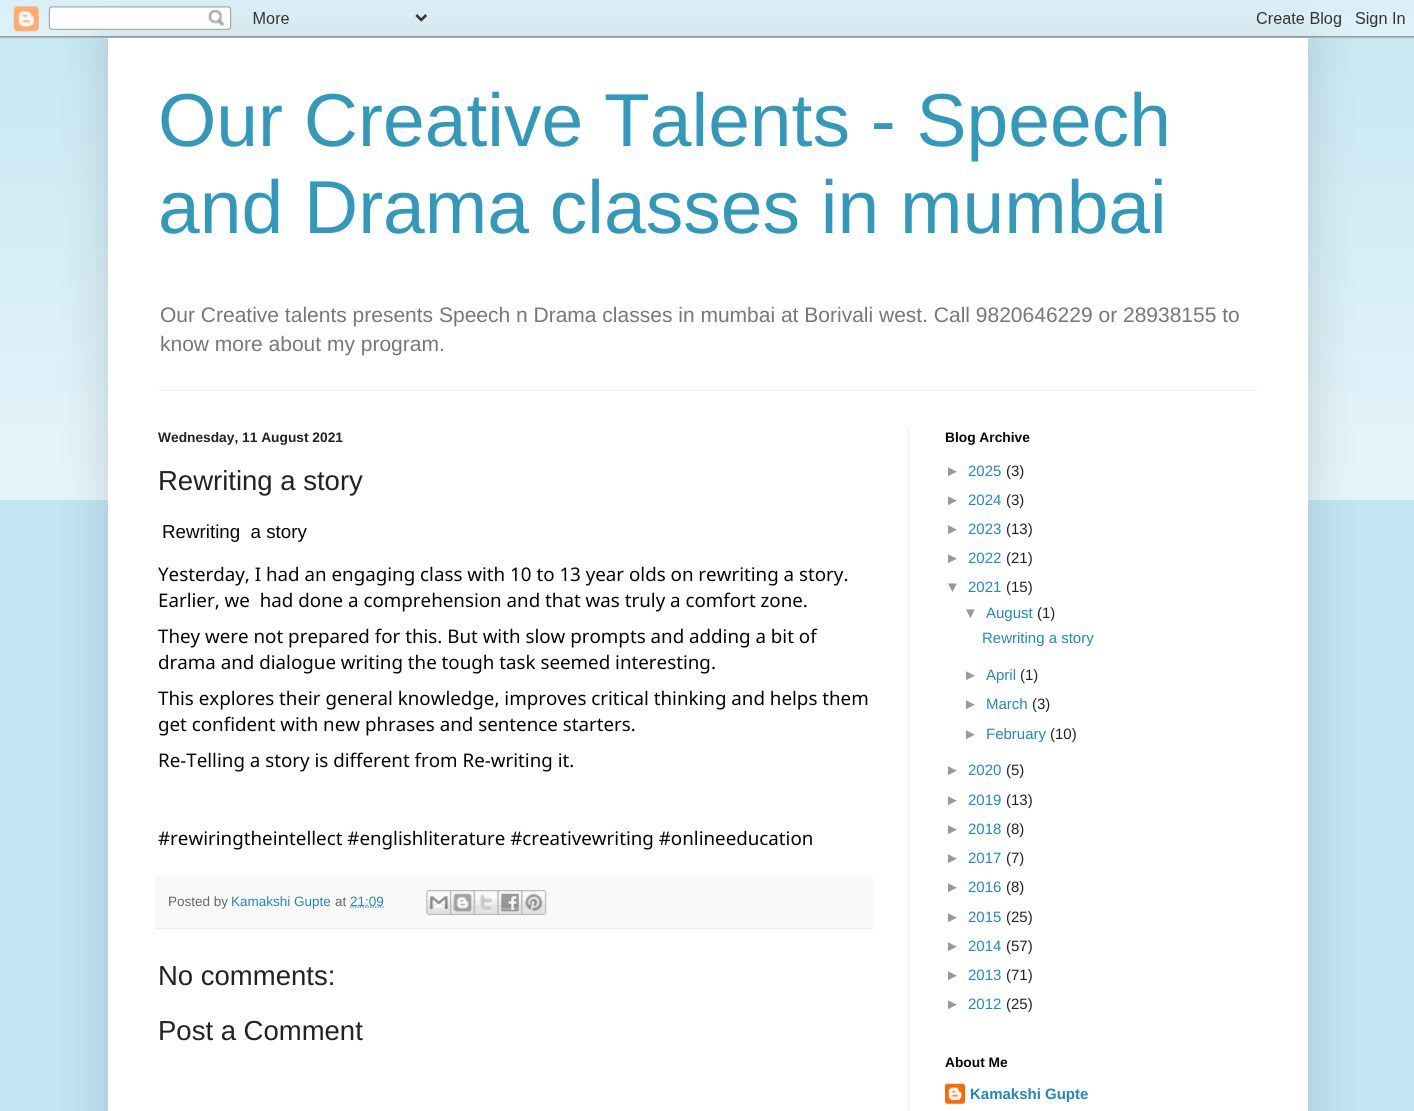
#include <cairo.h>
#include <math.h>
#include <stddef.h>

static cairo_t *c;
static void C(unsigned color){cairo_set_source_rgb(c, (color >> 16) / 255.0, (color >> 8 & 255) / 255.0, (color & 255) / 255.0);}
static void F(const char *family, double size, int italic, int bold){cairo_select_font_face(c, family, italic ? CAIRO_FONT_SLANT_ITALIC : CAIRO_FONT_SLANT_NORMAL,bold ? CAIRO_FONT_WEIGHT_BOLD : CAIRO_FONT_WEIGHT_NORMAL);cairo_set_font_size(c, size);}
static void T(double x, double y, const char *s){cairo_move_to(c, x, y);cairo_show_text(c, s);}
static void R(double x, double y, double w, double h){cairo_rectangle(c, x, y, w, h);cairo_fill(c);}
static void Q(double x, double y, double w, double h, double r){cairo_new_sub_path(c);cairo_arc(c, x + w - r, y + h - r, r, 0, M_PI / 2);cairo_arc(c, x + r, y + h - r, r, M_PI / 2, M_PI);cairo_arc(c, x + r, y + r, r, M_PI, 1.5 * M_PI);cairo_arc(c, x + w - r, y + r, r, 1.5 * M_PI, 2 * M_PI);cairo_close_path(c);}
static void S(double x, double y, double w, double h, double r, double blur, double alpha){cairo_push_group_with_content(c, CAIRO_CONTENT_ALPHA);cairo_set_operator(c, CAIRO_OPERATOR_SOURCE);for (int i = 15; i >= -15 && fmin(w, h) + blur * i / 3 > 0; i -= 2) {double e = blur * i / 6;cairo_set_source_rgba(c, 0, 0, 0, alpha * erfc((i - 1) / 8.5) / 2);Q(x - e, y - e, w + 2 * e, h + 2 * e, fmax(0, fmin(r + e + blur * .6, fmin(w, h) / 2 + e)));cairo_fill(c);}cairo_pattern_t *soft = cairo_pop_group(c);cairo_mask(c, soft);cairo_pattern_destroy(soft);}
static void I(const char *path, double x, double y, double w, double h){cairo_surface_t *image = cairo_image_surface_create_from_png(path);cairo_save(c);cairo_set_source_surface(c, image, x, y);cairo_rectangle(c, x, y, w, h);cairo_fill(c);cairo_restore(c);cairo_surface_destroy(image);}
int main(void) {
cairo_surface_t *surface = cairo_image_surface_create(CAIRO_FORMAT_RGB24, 1414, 1111);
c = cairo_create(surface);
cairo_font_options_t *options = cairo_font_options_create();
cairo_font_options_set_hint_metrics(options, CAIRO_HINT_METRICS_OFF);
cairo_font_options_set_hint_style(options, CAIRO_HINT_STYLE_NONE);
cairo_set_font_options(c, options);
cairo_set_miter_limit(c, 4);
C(0xc2e5f2);
cairo_paint(c);
I("2.png",0,13,1414,487);
C(0x000000);
S(108,38,1200,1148,0,25,.15);
I("1.png",0,0,1414,38);
C(0xffffff);
R(108,38,1200,1073);
F("Liberation Sans",75,0,0);
C(0x3399bb);
T(158,146,"Our Creative Talents - Speech");
T(158,233,"and Drama classes in mumbai");
F("Liberation Sans",21,0,0);
C(0x777777);
T(160,322,"Our Creative talents presents Speech n Drama classes in mumbai at Borivali west. Call 9820646229 or 28938155 to");
T(160,351,"know more about my program.");
C(0xeeeeee);
R(158,390,1100,1);
R(908,429,1,682);
F("Liberation Sans",13.75,0,1);
C(0x222222);
T(158,442,"Wednesday, 11 August 2021");
F("Liberation Sans",27.5,0,0);
T(158,490,"Rewriting a story");
F("Liberation Sans",18.75,0,0);
C(0x050505);
T(162,538,"Rewriting  a story");
F("Noto Sans",18.75,0,0);
T(158,581,"Yesterday, I had an engaging class with 10 to 13 year olds on rewriting a story.");
T(158,607,"Earlier, we  had done a comprehension and that was truly a comfort zone.");
T(158,643,"They were not prepared for this. But with slow prompts and adding a bit of");
T(158,669,"drama and dialogue writing the tough task seemed interesting.");
T(158,705,"This explores their general knowledge, improves critical thinking and helps them");
T(158,731,"get confident with new phrases and sentence starters.");
T(158,767,"Re-Telling a story is different from Re-writing it.");
T(158,845,"#rewiringtheintellect #englishliterature #creativewriting #onlineeducation");
C(0xf9f9f9);
R(155,876,718,52);
C(0xeeeeee);
R(155,928,718,1);
F("Liberation Sans",13.5,0,0);
C(0x666666);
T(168,906,"Posted by");
C(0x2288bb);
T(231,906,"Kamakshi Gupte");
C(0x666666);
T(335,906,"at");
cairo_new_path(c);
cairo_move_to(c,350,907);
cairo_line_to(c,383.5,907);
C(0x2288bb);
cairo_set_line_width(c,1.2);
cairo_set_dash(c,(double[]){1.25,1.25},2,0);
cairo_stroke(c);
T(350,906,"21:09");
I("3.png",426,890,24,25);
I("4.png",450,890,24,25);
I("5.png",473,890,25,25);
I("6.png",497,890,25,25);
I("7.png",521,890,26,25);
F("Liberation Sans",27.5,0,0);
C(0x222222);
T(158,985,"No comments:");
T(158,1040,"Post a Comment");
F("Liberation Sans",13.75,0,1);
C(0x050505);
T(945,442,"Blog Archive");
F("Liberation Sans",15,0,0);
C(0x999999);
T(945,476,"►");
C(0x2288bb);
T(968,476,"2025");
C(0x222222);
T(1006,476,"(3)");
C(0x999999);
T(945,505,"►");
C(0x2288bb);
T(968,505,"2024");
C(0x222222);
T(1006,505,"(3)");
C(0x999999);
T(945,534,"►");
C(0x2288bb);
T(968,534,"2023");
C(0x222222);
T(1006,534,"(13)");
C(0x999999);
T(945,563,"►");
C(0x2288bb);
T(968,563,"2022");
C(0x222222);
T(1006,563,"(21)");
C(0x999999);
T(945,592,"▼");
C(0x2288bb);
T(968,592,"2021");
C(0x222222);
T(1006,592,"(15)");
C(0x999999);
T(963,618,"▼");
C(0x2288bb);
T(986,618,"August");
C(0x222222);
T(1037,618,"(1)");
C(0x2288bb);
T(982,643,"Rewriting a story");
C(0x999999);
T(963,680,"►");
C(0x2288bb);
T(986,680,"April");
C(0x222222);
T(1020,680,"(1)");
C(0x999999);
T(963,709,"►");
C(0x2288bb);
T(986,709,"March");
C(0x222222);
T(1032,709,"(3)");
C(0x999999);
T(963,739,"►");
C(0x2288bb);
T(986,739,"February");
C(0x222222);
T(1050,739,"(10)");
C(0x999999);
T(945,775,"►");
C(0x2288bb);
T(968,775,"2020");
C(0x222222);
T(1006,775,"(5)");
C(0x999999);
T(945,805,"►");
C(0x2288bb);
T(968,805,"2019");
C(0x222222);
T(1006,805,"(13)");
C(0x999999);
T(945,834,"►");
C(0x2288bb);
T(968,834,"2018");
C(0x222222);
T(1006,834,"(8)");
C(0x999999);
T(945,863,"►");
C(0x2288bb);
T(968,863,"2017");
C(0x222222);
T(1006,863,"(7)");
C(0x999999);
T(945,892,"►");
C(0x2288bb);
T(968,892,"2016");
C(0x222222);
T(1006,892,"(8)");
C(0x999999);
T(945,922,"►");
C(0x2288bb);
T(968,922,"2015");
C(0x222222);
T(1006,922,"(25)");
C(0x999999);
T(945,951,"►");
C(0x2288bb);
T(968,951,"2014");
C(0x222222);
T(1006,951,"(57)");
C(0x999999);
T(945,980,"►");
C(0x2288bb);
T(968,980,"2013");
C(0x222222);
T(1006,980,"(71)");
C(0x999999);
T(945,1009,"►");
C(0x2288bb);
T(968,1009,"2012");
C(0x222222);
T(1006,1009,"(25)");
F("Liberation Sans",13.75,0,1);
C(0x050505);
T(945,1067,"About Me");
I("8.png",945,1083,20,21);
F("Liberation Sans",15,0,1);
C(0x2288bb);
T(970,1099,"Kamakshi Gupte");
cairo_surface_write_to_png(surface, "o.png");
cairo_font_options_destroy(options);
cairo_destroy(c);
cairo_surface_destroy(surface);
return 0;
}
